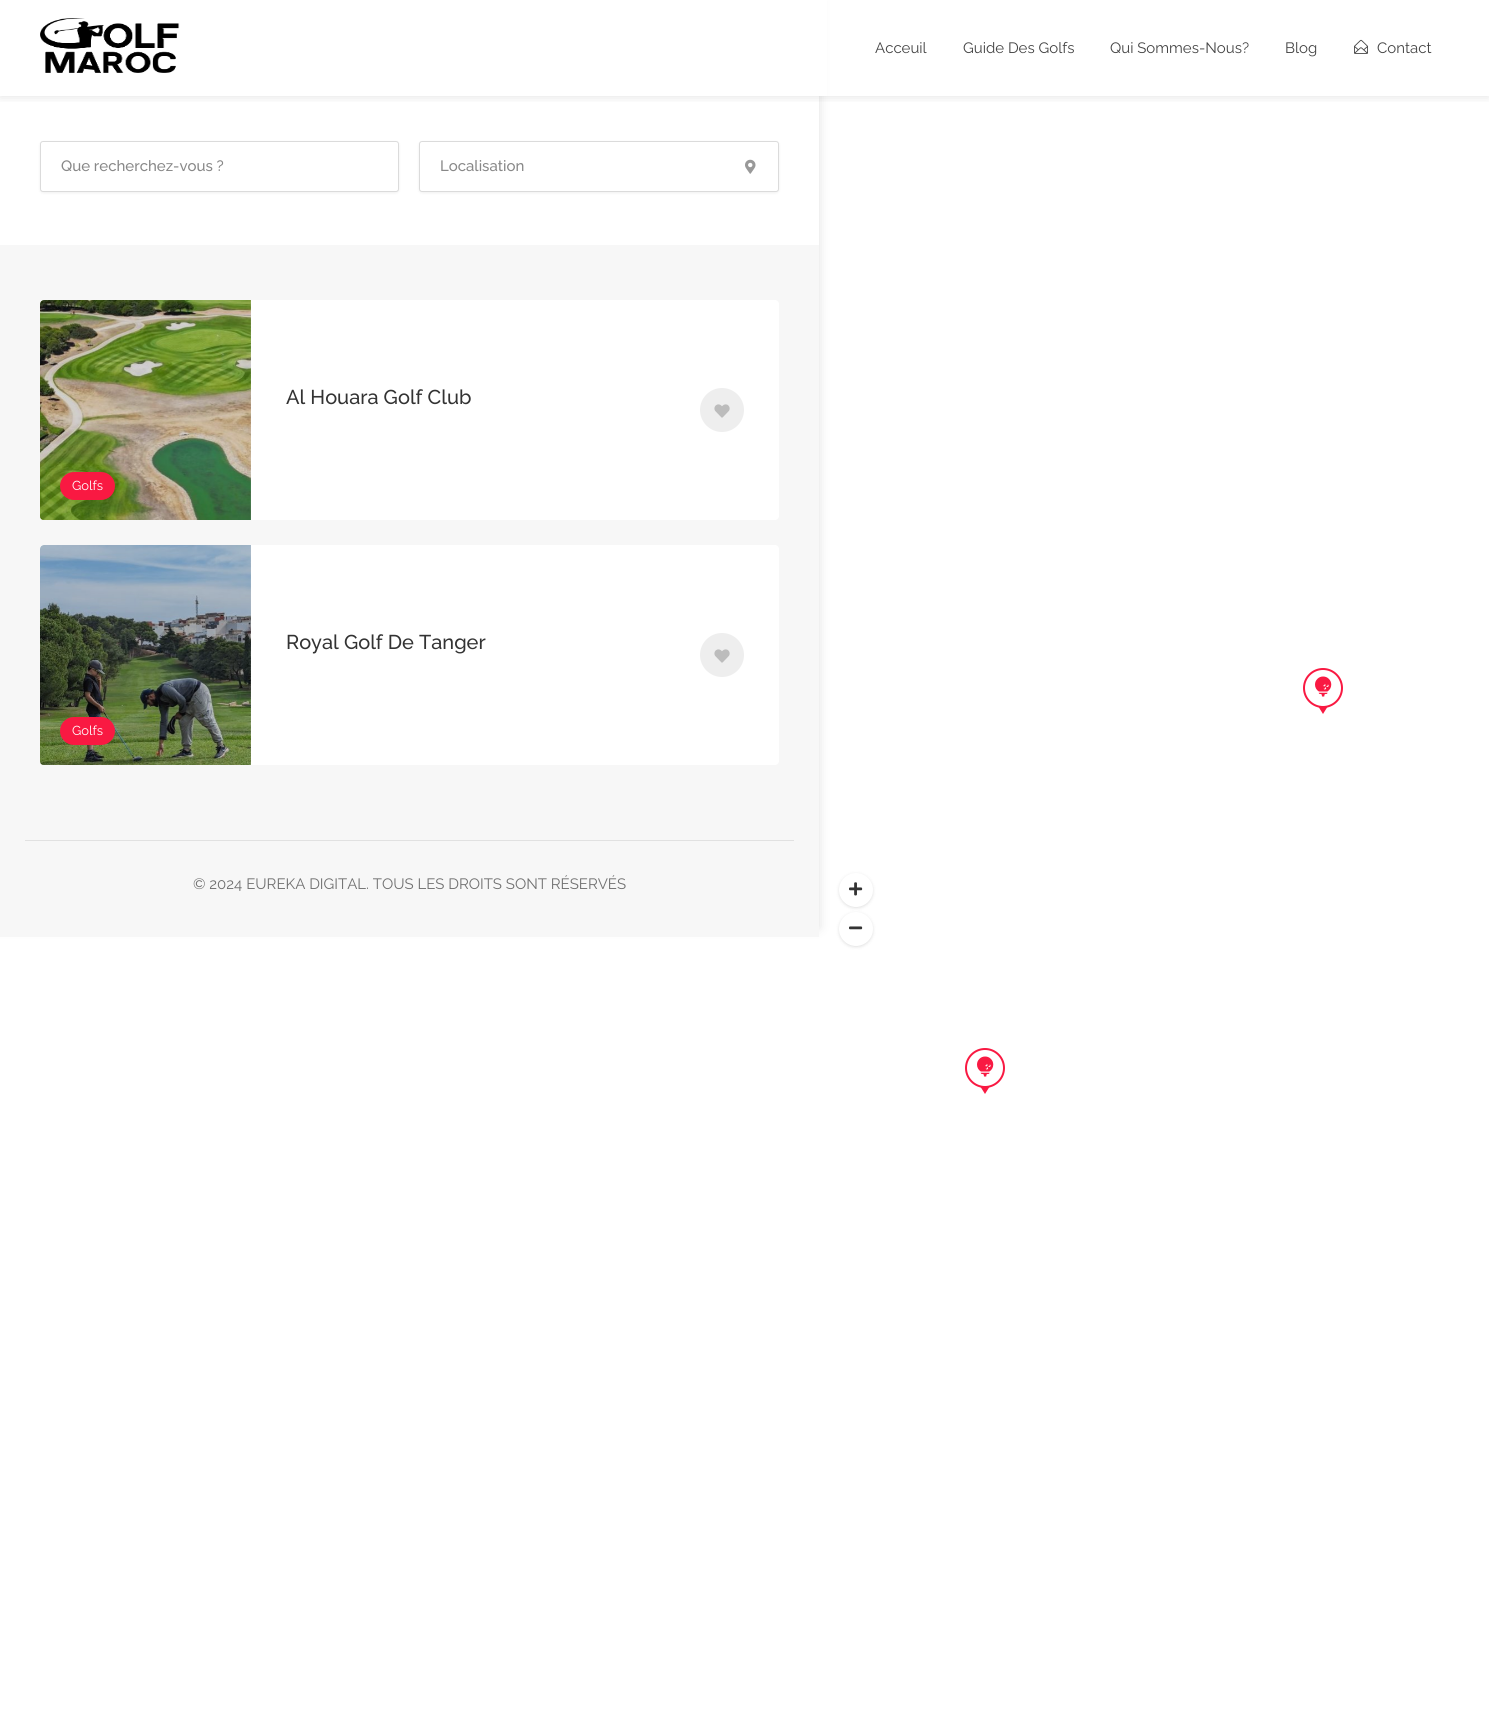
#include <cairo.h>
#include <math.h>
#include <stddef.h>

static cairo_t *c;
static void C(unsigned color){cairo_set_source_rgb(c, (color >> 16) / 255.0, (color >> 8 & 255) / 255.0, (color & 255) / 255.0);}
static void F(const char *family, double size, int italic, int bold){cairo_select_font_face(c, family, italic ? CAIRO_FONT_SLANT_ITALIC : CAIRO_FONT_SLANT_NORMAL,bold ? CAIRO_FONT_WEIGHT_BOLD : CAIRO_FONT_WEIGHT_NORMAL);cairo_set_font_size(c, size);}
static void T(double x, double y, const char *s){cairo_move_to(c, x, y);cairo_show_text(c, s);}
static void R(double x, double y, double w, double h){cairo_rectangle(c, x, y, w, h);cairo_fill(c);}
static void Q(double x, double y, double w, double h, double r){cairo_new_sub_path(c);cairo_arc(c, x + w - r, y + h - r, r, 0, M_PI / 2);cairo_arc(c, x + r, y + h - r, r, M_PI / 2, M_PI);cairo_arc(c, x + r, y + r, r, M_PI, 1.5 * M_PI);cairo_arc(c, x + w - r, y + r, r, 1.5 * M_PI, 2 * M_PI);cairo_close_path(c);}
static void S(double x, double y, double w, double h, double r, double blur, double alpha){cairo_push_group_with_content(c, CAIRO_CONTENT_ALPHA);cairo_set_operator(c, CAIRO_OPERATOR_SOURCE);for (int i = 15; i >= -15 && fmin(w, h) + blur * i / 3 > 0; i -= 2) {double e = blur * i / 6;cairo_set_source_rgba(c, 0, 0, 0, alpha * erfc((i - 1) / 8.5) / 2);Q(x - e, y - e, w + 2 * e, h + 2 * e, fmax(0, fmin(r + e + blur * .6, fmin(w, h) / 2 + e)));cairo_fill(c);}cairo_pattern_t *soft = cairo_pop_group(c);cairo_mask(c, soft);cairo_pattern_destroy(soft);}
static void I(const char *path, double x, double y, double w, double h){cairo_surface_t *image = cairo_image_surface_create_from_png(path);cairo_save(c);cairo_set_source_surface(c, image, x, y);cairo_rectangle(c, x, y, w, h);cairo_fill(c);cairo_restore(c);cairo_surface_destroy(image);}
int main(void) {
cairo_surface_t *surface = cairo_image_surface_create(CAIRO_FORMAT_RGB24, 1489, 1712);
c = cairo_create(surface);
cairo_font_options_t *options = cairo_font_options_create();
cairo_font_options_set_hint_metrics(options, CAIRO_HINT_METRICS_OFF);
cairo_font_options_set_hint_style(options, CAIRO_HINT_STYLE_NONE);
cairo_set_font_options(c, options);
cairo_set_miter_limit(c, 4);
C(0xffffff);
cairo_paint(c);
C(0x000000);
S(0,0,819,928,0,6,.12);
C(0xffffff);
R(0,0,827,96);
R(0,96,819,149);
cairo_save(c);
cairo_rectangle(c,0,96,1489,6);
cairo_clip(c);
C(0x000000);
S(0,0,1489,96,0,6,.12);
cairo_restore(c);
I("1.png",40,18,140,55);
F("Raleway Thin",15,0,0);
C(0x444444);
T(875,53,"Acceuil");
T(963,53,"Guide Des Golfs");
T(1110,53,"Qui Sommes-Nous?");
T(1285,53,"Blog");
I("2.png",1354,39,14,15);
T(1377,53,"Contact");
C(0xf7f7f7);
R(0,245,819,682);
C(0x000000);
S(40,142,359,51,3,1.5,.06);
C(0xffffff);
Q(40.5,141.5,358,50,2.5);
cairo_fill_preserve(c);
C(0xdbdbdb);
cairo_set_line_width(c,1);
cairo_stroke(c);
F("Raleway Medium",15,0,0);
C(0x888888);
T(61,171,"Que recherchez-vous ?");
C(0x000000);
S(419,142,360,51,3,1.5,.06);
C(0xffffff);
Q(419.5,141.5,359,50,2.5);
cairo_fill_preserve(c);
C(0xdbdbdb);
cairo_stroke(c);
C(0x888888);
T(440,171,"Localisation");
I("3.png",745,159,11,15);
C(0xffffff);
Q(40,300,739,220,4);
cairo_fill(c);
F("Raleway Medium",20,0,0);
C(0x333333);
T(286,404,"Al Houara Golf Club");
C(0xeeeeee);
cairo_new_path(c);
cairo_arc(c,722,410,22,0,2 * M_PI);
cairo_fill(c);
I("4.png",714,404,16,14);
I("5.png",40,300,211,220);
cairo_set_source_rgba(c,0.153,0.153,0.161,0.2);
cairo_new_path(c);
cairo_move_to(c,44,300);
cairo_line_to(c,251,300);
cairo_line_to(c,251,520);
cairo_line_to(c,44,520);
cairo_curve_to(c,42,520,40,518,40,516);
cairo_line_to(c,40,304);
cairo_curve_to(c,40,302,42,300,44,300);
cairo_close_path(c);
cairo_fill(c);
C(0xf91942);
Q(60,472,55,28,14);
cairo_fill(c);
F("Raleway Thin",13,0,0);
C(0xffffff);
T(72,490,"Golfs");
Q(40,545,739,220,4);
cairo_fill(c);
F("Raleway Medium",20,0,0);
C(0x333333);
T(286,649,"Royal Golf De Tanger");
C(0xeeeeee);
cairo_new_path(c);
cairo_arc(c,722,655,22,0,2 * M_PI);
cairo_fill(c);
I("4.png",714,649,16,14);
I("6.png",40,545,211,220);
cairo_set_source_rgba(c,0.153,0.153,0.161,0.2);
cairo_new_path(c);
cairo_move_to(c,44,545);
cairo_line_to(c,251,545);
cairo_line_to(c,251,765);
cairo_line_to(c,44,765);
cairo_curve_to(c,42,765,40,763,40,761);
cairo_line_to(c,40,549);
cairo_curve_to(c,40,547,42,545,44,545);
cairo_close_path(c);
cairo_fill(c);
C(0xf91942);
Q(60,717,55,28,14);
cairo_fill(c);
F("Raleway Thin",13,0,0);
C(0xffffff);
T(72,735,"Golfs");
C(0xe1e1e1);
R(25,840,769,1);
F("Raleway Thin",15,0,0);
C(0x707070);
T(193,889,"© 2024 EUREKA DIGITAL. TOUS LES DROITS SONT RÉSERVÉS");
C(0xf7f7f7);
cairo_new_path(c);
cairo_move_to(c,-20,916);
cairo_line_to(c,-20,937);
cairo_line_to(c,819,937);
cairo_line_to(c,819,927);
cairo_line_to(c,0,927);
cairo_line_to(c,0,926);
cairo_line_to(c,819,926);
cairo_line_to(c,819,916);
cairo_close_path(c);
cairo_fill(c);
C(0x000000);
S(840,875,32,32,16,2,.2);
C(0xffffff);
cairo_arc(c,856,890,17,0,2 * M_PI);
cairo_fill(c);
I("7.png",849,882,14,14);
C(0x000000);
S(840,914,32,32,16,2,.2);
C(0xffffff);
cairo_arc(c,856,929,17,0,2 * M_PI);
cairo_fill(c);
I("8.png",849,926,14,4);
C(0xf91942);
cairo_new_path(c);
cairo_move_to(c,1318,706);
cairo_line_to(c,1328,706);
cairo_line_to(c,1323,714);
cairo_close_path(c);
cairo_fill(c);
C(0xffffff);
cairo_arc(c,1323,688,19,0,2 * M_PI);
cairo_fill_preserve(c);
C(0xf91942);
cairo_set_line_width(c,2);
cairo_stroke(c);
I("9.png",1315,676,17,21);
cairo_new_path(c);
cairo_move_to(c,980,1086);
cairo_line_to(c,990,1086);
cairo_line_to(c,985,1094);
cairo_close_path(c);
cairo_fill(c);
C(0xffffff);
cairo_arc(c,985,1068,19,0,2 * M_PI);
cairo_fill_preserve(c);
C(0xf91942);
cairo_stroke(c);
I("9.png",977,1056,17,21);
cairo_surface_write_to_png(surface, "o.png");
cairo_font_options_destroy(options);
cairo_destroy(c);
cairo_surface_destroy(surface);
return 0;
}
